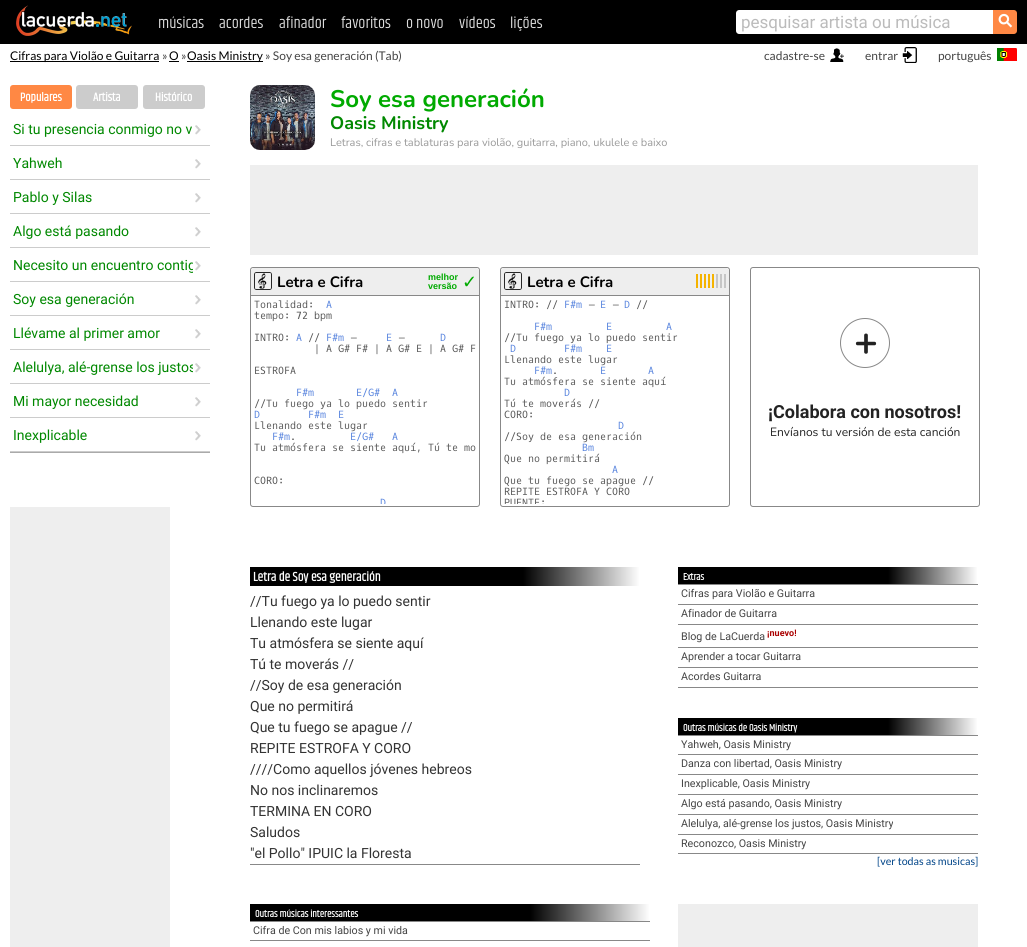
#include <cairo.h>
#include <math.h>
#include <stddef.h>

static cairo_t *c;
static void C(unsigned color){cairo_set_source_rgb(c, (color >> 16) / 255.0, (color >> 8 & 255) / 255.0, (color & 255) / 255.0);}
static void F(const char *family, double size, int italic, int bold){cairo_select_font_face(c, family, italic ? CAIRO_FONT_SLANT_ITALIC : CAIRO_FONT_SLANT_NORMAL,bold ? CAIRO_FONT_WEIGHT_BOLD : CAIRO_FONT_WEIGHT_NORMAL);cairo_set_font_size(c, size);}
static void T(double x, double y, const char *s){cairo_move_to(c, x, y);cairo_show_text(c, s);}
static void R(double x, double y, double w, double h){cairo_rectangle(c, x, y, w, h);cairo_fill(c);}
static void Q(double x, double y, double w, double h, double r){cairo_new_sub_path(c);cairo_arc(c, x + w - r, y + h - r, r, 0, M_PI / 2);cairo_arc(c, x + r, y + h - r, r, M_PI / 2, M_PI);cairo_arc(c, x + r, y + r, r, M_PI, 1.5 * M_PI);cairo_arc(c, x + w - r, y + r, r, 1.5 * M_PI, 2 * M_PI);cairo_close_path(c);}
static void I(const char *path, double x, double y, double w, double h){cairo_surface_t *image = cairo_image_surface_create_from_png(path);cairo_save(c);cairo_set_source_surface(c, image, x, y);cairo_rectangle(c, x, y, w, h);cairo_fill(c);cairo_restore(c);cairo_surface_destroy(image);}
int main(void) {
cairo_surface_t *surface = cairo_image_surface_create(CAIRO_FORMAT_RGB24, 1027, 947);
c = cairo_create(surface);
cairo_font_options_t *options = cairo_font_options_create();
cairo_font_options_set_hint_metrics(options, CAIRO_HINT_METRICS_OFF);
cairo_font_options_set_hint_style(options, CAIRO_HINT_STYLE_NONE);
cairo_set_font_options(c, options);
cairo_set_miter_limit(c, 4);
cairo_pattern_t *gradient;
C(0xffffff);
cairo_paint(c);
C(0x000000);
R(0,0,1027,44);
I("1.png",16,5,116,31);
F("Khand",16,0,0);
C(0xdddddd);
T(158,28,"músicas");
T(219,28,"acordes");
T(279,28,"afinador");
T(341,28,"favoritos");
T(406,28,"o novo");
T(459,28,"vídeos");
T(510,28,"lições");
C(0xffffff);
cairo_new_path(c);
cairo_move_to(c,739,10);
cairo_line_to(c,993,10);
cairo_line_to(c,993,34);
cairo_line_to(c,739,34);
cairo_curve_to(c,737.5,34,736,32.5,736,31);
cairo_line_to(c,736,13);
cairo_curve_to(c,736,11.5,737.5,10,739,10);
cairo_close_path(c);
cairo_fill(c);
F("Roboto",17,0,0);
C(0xbbbbbb);
T(741,28,"pesquisar artista ou música");
C(0xff8844);
cairo_new_path(c);
cairo_move_to(c,993,10);
cairo_line_to(c,1014,10);
cairo_curve_to(c,1015.5,10,1017,11.5,1017,13);
cairo_line_to(c,1017,31);
cairo_curve_to(c,1017,32.5,1015.5,34,1014,34);
cairo_line_to(c,993,34);
cairo_close_path(c);
cairo_fill(c);
F("DejaVu Sans",18,0,1);
C(0xffffff);
cairo_save(c);
cairo_translate(c,1005,30);
cairo_rotate(c,-45 * M_PI / 180);
T(0,0,"⚲");
cairo_restore(c);
C(0x000000);
R(10,61,149,1);
F("Lato",12,0,0);
T(10,60,"Cifras para Violão e Guitarra");
C(0x444444);
T(162,60,"»");
C(0x000000);
T(169,60,"O");
R(169,61,10,1);
C(0x444444);
T(181,60,"»");
C(0x000000);
R(187,61,76,1);
T(187,60,"Oasis Ministry");
C(0x444444);
T(265,60,"» Soy esa generación (Tab)");
I("2.png",830,48,14,14);
T(764,60,"cadastre-se");
I("3.png",902,47,15,16);
T(865,60,"entrar");
I("4.png",997,48,20,13);
T(938,60,"português");
C(0xff8844);
Q(10,85,62,24,3);
cairo_fill(c);
F("Khand",12,0,1);
C(0xffffff);
T(20,101,"Populares");
C(0xcccccc);
Q(76,85,62,24,3);
cairo_fill(c);
C(0xffffff);
T(93,101,"Artista");
C(0xcccccc);
Q(143,85,62,24,3);
cairo_fill(c);
C(0xffffff);
T(155,101,"Histórico");
C(0xaaaaaa);
R(10,452,200,1);
I("5.png",195,125,6,10);
C(0xcccccc);
R(10,145,200,1);
F("Roboto",14,0,0);
C(0x008800);
T(13,134,"Si tu presencia conmigo no v");
I("5.png",195,159,6,10);
C(0xcccccc);
R(10,179,200,1);
C(0x008800);
T(13,168,"Yahweh");
I("5.png",195,193,6,10);
C(0xcccccc);
R(10,213,200,1);
C(0x008800);
T(13,202,"Pablo y Silas");
I("5.png",195,227,6,10);
C(0xcccccc);
R(10,247,200,1);
C(0x008800);
T(13,236,"Algo está pasando");
I("5.png",195,261,6,10);
C(0xcccccc);
R(10,281,200,1);
cairo_save(c);
cairo_rectangle(c,13,254,180,22);
cairo_clip(c);
C(0x008800);
T(13,270,"Necesito un encuentro contig");
cairo_restore(c);
I("5.png",195,295,6,10);
R(10,315,200,1);
C(0x008800);
T(13,304,"Soy esa generación");
I("5.png",195,329,6,10);
C(0xcccccc);
R(10,349,200,1);
C(0x008800);
T(13,338,"Llévame al primer amor");
I("5.png",195,363,6,10);
C(0xcccccc);
R(10,383,200,1);
cairo_save(c);
cairo_rectangle(c,13,356,180,22);
cairo_clip(c);
C(0x008800);
T(13,372,"Alelulya, alé-grense los justos");
cairo_restore(c);
I("5.png",195,397,6,10);
R(10,417,200,1);
C(0x008800);
T(13,406,"Mi mayor necesidad");
I("5.png",195,431,6,10);
C(0xcccccc);
R(10,451,200,1);
C(0x008800);
T(13,440,"Inexplicable");
C(0xeeeeee);
R(10,507,160,440);
I("6.png",250,85,65,65);
F("Nunito",24,0,1);
C(0x00aa00);
T(330,107,"Soy esa generación");
F("Nunito",18,0,1);
C(0x008800);
T(330,129,"Oasis Ministry");
F("Nunito",11,0,0);
C(0x999999);
T(330,146,"Letras, cifras e tablaturas para violão, guitarra, piano, ukulele e baixo");
C(0xeeeeee);
R(250,165,728,90);
Q(250.5,267.5,229,239,2.5);
C(0x888888);
cairo_set_line_width(c,1);
cairo_stroke(c);
C(0xeeeeee);
cairo_new_path(c);
cairo_move_to(c,254,268);
cairo_line_to(c,476,268);
cairo_curve_to(c,477.5,268,479,269.5,479,271);
cairo_line_to(c,479,295);
cairo_line_to(c,251,295);
cairo_line_to(c,251,271);
cairo_curve_to(c,251,269.5,252.5,268,254,268);
cairo_close_path(c);
cairo_fill(c);
C(0x888888);
R(251,295,228,1);
I("7.png",254,272,18,18);
F("Nunito",15,0,1);
C(0x000000);
T(277,287,"Letra e Cifra");
F("Liberation Sans",9,0,1);
C(0x00aa00);
T(428,280,"melhor");
F("DejaVu Sans",18,0,0);
T(462,288,"✓");
F("Liberation Sans",9,0,1);
T(428,289,"versão");
F("Oxygen Mono",10,0,0);
C(0x595959);
T(254,308,"Tonalidad:");
C(0x5985de);
T(326,308,"A");
C(0x595959);
T(254,319,"tempo: 72 bpm");
T(254,341,"INTRO:");
C(0x5985de);
T(296,341,"A");
C(0x595959);
T(308,341,"//");
C(0x5985de);
T(326,341,"F#m");
C(0x595959);
T(350,341,"–");
C(0x5985de);
T(386,341,"E");
C(0x595959);
T(398,341,"–");
C(0x5985de);
T(440,341,"D");
C(0x595959);
T(314,352,"| A G# F# | A G# E | A G# F");
T(254,374,"ESTROFA");
C(0x5985de);
T(296,396,"F#m");
T(356,396,"E/G#");
T(392,396,"A");
C(0x595959);
T(254,407,"//Tu fuego ya lo puedo sentir");
C(0x5985de);
T(254,418,"D");
T(308,418,"F#m");
T(338,418,"E");
C(0x595959);
T(254,429,"Llenando este lugar");
C(0x5985de);
T(272,440,"F#m");
C(0x595959);
T(290,440,".");
C(0x5985de);
T(350,440,"E/G#");
T(392,440,"A");
C(0x595959);
T(254,451,"Tu atmósfera se siente aquí, Tú te mo");
T(254,484,"CORO:");
cairo_save(c);
cairo_rectangle(c,254,299,222,205);
cairo_clip(c);
C(0x5985de);
T(380,506,"D");
cairo_restore(c);
Q(500.5,267.5,229,239,2.5);
C(0x888888);
cairo_stroke(c);
C(0xeeeeee);
cairo_new_path(c);
cairo_move_to(c,504,268);
cairo_line_to(c,726,268);
cairo_curve_to(c,727.5,268,729,269.5,729,271);
cairo_line_to(c,729,295);
cairo_line_to(c,501,295);
cairo_line_to(c,501,271);
cairo_curve_to(c,501,269.5,502.5,268,504,268);
cairo_close_path(c);
cairo_fill(c);
C(0x888888);
R(501,295,228,1);
I("7.png",504,272,18,18);
F("Nunito",15,0,1);
C(0x000000);
T(527,287,"Letra e Cifra");
I("8.png",696,274,30,14);
F("Oxygen Mono",10,0,0);
C(0x595959);
T(504,308,"INTRO: //");
C(0x5985de);
T(564,308,"F#m");
C(0x595959);
T(588,308,"–");
C(0x5985de);
T(600,308,"E");
C(0x595959);
T(612,308,"–");
C(0x5985de);
T(624,308,"D");
C(0x595959);
T(636,308,"//");
C(0x5985de);
T(534,330,"F#m");
T(606,330,"E");
T(666,330,"A");
C(0x595959);
T(504,341,"//Tu fuego ya lo puedo sentir");
C(0x5985de);
T(510,352,"D");
T(564,352,"F#m");
T(606,352,"E");
C(0x595959);
T(504,363,"Llenando este lugar");
C(0x5985de);
T(534,374,"F#m");
C(0x595959);
T(552,374,".");
C(0x5985de);
T(600,374,"E");
T(648,374,"A");
C(0x595959);
T(504,385,"Tu atmósfera se siente aquí");
C(0x5985de);
T(564,396,"D");
C(0x595959);
T(504,407,"Tú te moverás //");
T(504,418,"CORO:");
C(0x5985de);
T(618,429,"D");
C(0x595959);
T(504,440,"//Soy de esa generación");
C(0x5985de);
T(582,451,"Bm");
C(0x595959);
T(504,462,"Que no permitirá");
C(0x5985de);
T(612,473,"A");
C(0x595959);
T(504,484,"Que tu fuego se apague //");
T(504,495,"REPITE ESTROFA Y CORO");
cairo_save(c);
cairo_rectangle(c,504,299,222,205);
cairo_clip(c);
T(504,506,"PUENTE:");
cairo_restore(c);
Q(750.5,267.5,229,239,2.5);
C(0x888888);
cairo_stroke(c);
cairo_arc(c,865,343,24.5,0,2 * M_PI);
cairo_stroke(c);
F("Nunito",40,0,1);
C(0x222222);
T(854,355,"+");
F("Roboto",18,0,1);
T(768,418,"¡Colabora con nosotros!");
F("Nunito",12,0,0);
T(770,436,"Envíanos tu versión de esta canción");
gradient = cairo_pattern_create_linear(250,577,640,577);
cairo_pattern_add_color_stop_rgba(gradient,0,0,0,0,1);
cairo_pattern_add_color_stop_rgba(gradient,.7,0,0,0,1);
cairo_pattern_add_color_stop_rgba(gradient,1,1,1,1,1);
cairo_set_source(c,gradient);
cairo_pattern_destroy(gradient);
R(250,567,389,19);
F("Khand",13,0,1);
C(0xffffff);
T(253,581,"Letra de Soy esa generación");
C(0x888888);
R(250,864,390,1);
F("Roboto",14,0,0);
C(0x333333);
T(250,606,"//Tu fuego ya lo puedo sentir");
T(250,627,"Llenando este lugar");
T(250,648,"Tu atmósfera se siente aquí");
T(250,669,"Tú te moverás //");
T(250,690,"//Soy de esa generación");
T(250,711,"Que no permitirá");
T(250,732,"Que tu fuego se apague //");
T(250,753,"REPITE ESTROFA Y CORO");
T(250,774,"////Como aquellos jóvenes hebreos");
T(250,795,"No nos inclinaremos");
T(250,816,"TERMINA EN CORO");
T(250,837,"Saludos");
T(250,858,"\"el Pollo\" IPUIC la Floresta");
gradient = cairo_pattern_create_linear(678,538,978,538);
cairo_pattern_add_color_stop_rgba(gradient,0,0,0,0,1);
cairo_pattern_add_color_stop_rgba(gradient,.7,0,0,0,1);
cairo_pattern_add_color_stop_rgba(gradient,1,1,1,1,1);
cairo_set_source(c,gradient);
cairo_pattern_destroy(gradient);
R(678,567,299,17);
C(0x888888);
R(678,584,300,1);
F("Khand",10,0,1);
C(0xffffff);
T(683,580,"Extras");
C(0x888888);
R(678,604,300,1);
F("Roboto",10.7,0,0);
C(0x444444);
T(681,597,"Cifras para Violão e Guitarra");
C(0x888888);
R(678,624,300,1);
C(0x444444);
T(681,617,"Afinador de Guitarra");
C(0x888888);
R(678,647,300,1);
C(0x444444);
T(681,640,"Blog de LaCuerda");
F("Roboto",9,0,1);
C(0xaa0000);
T(767,636,"¡nuevo!");
C(0x888888);
R(678,667,300,1);
F("Roboto",10.7,0,0);
C(0x444444);
T(681,660,"Aprender a tocar Guitarra");
C(0x888888);
R(678,687,300,1);
C(0x444444);
T(681,680,"Acordes Guitarra");
gradient = cairo_pattern_create_linear(678,689,978,689);
cairo_pattern_add_color_stop_rgba(gradient,0,0,0,0,1);
cairo_pattern_add_color_stop_rgba(gradient,.7,0,0,0,1);
cairo_pattern_add_color_stop_rgba(gradient,1,1,1,1,1);
cairo_set_source(c,gradient);
cairo_pattern_destroy(gradient);
R(678,718,299,17);
C(0x888888);
R(678,735,300,1);
F("Khand",10,0,1);
C(0xffffff);
T(683,731,"Outras músicas de Oasis Ministry");
C(0x888888);
R(678,754,300,1);
F("Roboto",10.7,0,0);
C(0x444444);
T(681,748,"Yahweh, Oasis Ministry");
C(0x888888);
R(678,774,300,1);
C(0x444444);
T(681,767,"Danza con libertad, Oasis Ministry");
C(0x888888);
R(678,794,300,1);
C(0x444444);
T(681,787,"Inexplicable, Oasis Ministry");
C(0x888888);
R(678,814,300,1);
C(0x444444);
T(681,807,"Algo está pasando, Oasis Ministry");
C(0x888888);
R(678,834,300,1);
C(0x444444);
T(681,827,"Alelulya, alé-grense los justos, Oasis Ministry");
C(0x888888);
R(678,853,300,1);
C(0x444444);
T(681,847,"Reconozco, Oasis Ministry");
F("Lato",10.7,0,0);
C(0x004488);
T(877,865,"[ver todas as musicas]");
gradient = cairo_pattern_create_linear(250,875,650,875);
cairo_pattern_add_color_stop_rgba(gradient,0,0,0,0,1);
cairo_pattern_add_color_stop_rgba(gradient,.7,0,0,0,1);
cairo_pattern_add_color_stop_rgba(gradient,1,1,1,1,1);
cairo_set_source(c,gradient);
cairo_pattern_destroy(gradient);
R(250,904,399,17);
C(0x888888);
R(250,921,400,1);
F("Khand",10,0,1);
C(0xffffff);
T(255,917,"Outras músicas interessantes");
C(0x888888);
R(250,940,400,1);
F("Roboto",10.7,0,0);
C(0x444444);
T(253,934,"Cifra de Con mis labios y mi vida");
C(0xeeeeee);
R(678,904,300,43);
cairo_surface_write_to_png(surface, "o.png");
cairo_font_options_destroy(options);
cairo_destroy(c);
cairo_surface_destroy(surface);
return 0;
}
